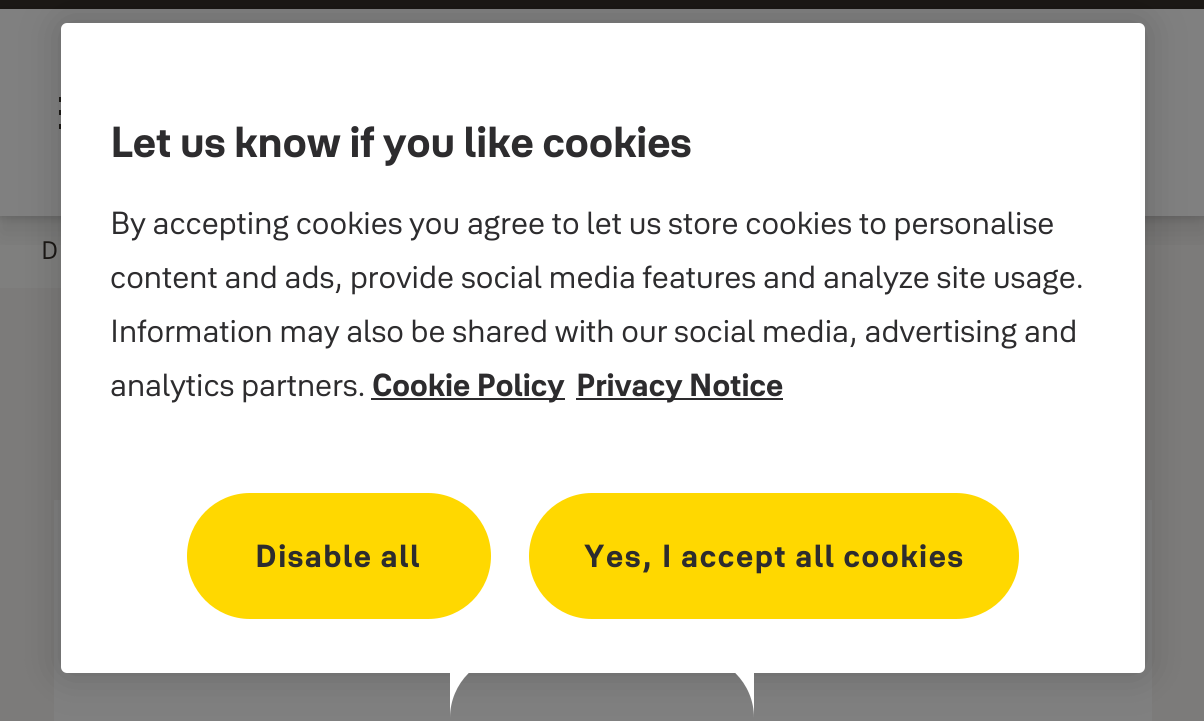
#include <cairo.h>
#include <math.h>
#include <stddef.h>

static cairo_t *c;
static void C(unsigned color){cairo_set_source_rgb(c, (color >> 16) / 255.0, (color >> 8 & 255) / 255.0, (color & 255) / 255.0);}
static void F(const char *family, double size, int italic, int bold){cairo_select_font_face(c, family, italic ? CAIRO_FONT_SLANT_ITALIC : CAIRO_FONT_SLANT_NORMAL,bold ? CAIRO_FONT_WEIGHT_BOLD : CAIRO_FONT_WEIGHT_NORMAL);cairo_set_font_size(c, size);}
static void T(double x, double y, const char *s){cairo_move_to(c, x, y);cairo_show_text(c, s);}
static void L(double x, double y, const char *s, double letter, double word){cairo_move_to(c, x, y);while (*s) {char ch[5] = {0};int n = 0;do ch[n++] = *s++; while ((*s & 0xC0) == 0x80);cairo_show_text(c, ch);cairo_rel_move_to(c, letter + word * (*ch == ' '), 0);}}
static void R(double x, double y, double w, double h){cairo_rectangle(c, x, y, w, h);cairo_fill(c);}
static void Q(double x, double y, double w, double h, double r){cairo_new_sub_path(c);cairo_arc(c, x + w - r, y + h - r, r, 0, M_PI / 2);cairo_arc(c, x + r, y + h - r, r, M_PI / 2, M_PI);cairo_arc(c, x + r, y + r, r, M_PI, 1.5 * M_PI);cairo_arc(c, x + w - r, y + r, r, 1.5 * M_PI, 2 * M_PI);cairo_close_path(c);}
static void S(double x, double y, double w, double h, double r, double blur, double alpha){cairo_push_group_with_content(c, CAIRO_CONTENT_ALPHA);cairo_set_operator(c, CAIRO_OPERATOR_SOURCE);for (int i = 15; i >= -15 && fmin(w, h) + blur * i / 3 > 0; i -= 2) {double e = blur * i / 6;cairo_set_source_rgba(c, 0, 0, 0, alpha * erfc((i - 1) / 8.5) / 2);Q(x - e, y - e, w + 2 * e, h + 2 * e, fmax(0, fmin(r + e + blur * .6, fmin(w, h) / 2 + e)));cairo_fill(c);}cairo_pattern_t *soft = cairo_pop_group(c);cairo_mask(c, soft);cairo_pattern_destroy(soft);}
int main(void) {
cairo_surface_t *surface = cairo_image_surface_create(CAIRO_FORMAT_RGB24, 1204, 721);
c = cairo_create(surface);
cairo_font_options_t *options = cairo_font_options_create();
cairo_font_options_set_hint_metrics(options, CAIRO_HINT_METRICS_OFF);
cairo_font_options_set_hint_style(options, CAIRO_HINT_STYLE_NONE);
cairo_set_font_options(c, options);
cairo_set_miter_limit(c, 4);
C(0x7c7b7a);
cairo_paint(c);
C(0x1b1815);
R(0,0,1204,9);
C(0x808080);
R(0,9,1204,207);
C(0x1b1815);
R(59,97,2,5);
R(59,110,2,5);
R(59,124,2,5);
C(0x7f7f7e);
R(0,216,61,72);
cairo_save(c);
cairo_set_fill_rule(c,CAIRO_FILL_RULE_EVEN_ODD);
cairo_new_path(c);
cairo_move_to(c,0,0);
cairo_line_to(c,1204,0);
cairo_line_to(c,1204,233);
cairo_line_to(c,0,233);
cairo_close_path(c);
cairo_move_to(c,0,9);
cairo_line_to(c,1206,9);
cairo_line_to(c,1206,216);
cairo_line_to(c,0,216);
cairo_close_path(c);
cairo_clip(c);
C(0x000000);
S(0,11,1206,207,0,4.5,.15);
cairo_restore(c);
cairo_save(c);
cairo_rectangle(c,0,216,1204,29);
cairo_clip(c);
C(0x000000);
S(0,27,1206,207,0,13.5,.1);
cairo_restore(c);
F("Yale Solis",25,0,0);
C(0x1b1815);
T(41,259,"D");
C(0x808080);
R(54,500,1098,221);
C(0x000000);
S(61,23,1084,650,6,20,.2);
C(0xffffff);
Q(61,23,1084,650,6);
cairo_fill(c);
F("Yale Solis",42.75,0,1);
C(0x2d2c2e);
T(110,157,"Let us know if you like cookies");
F("Yale Solis",31.5,0,0);
T(110,234,"By accepting cookies you agree to let us store cookies to personalise");
T(110,288,"content and ads, provide social media features and analyze site usage.");
T(110,342,"Information may also be shared with our social media, advertising and");
T(110,396,"analytics partners.");
R(371,398,194,2);
F("Yale Solis",31.5,0,1);
T(372,396,"Cookie Policy");
R(576,398,207,2);
T(576,396,"Privacy Notice");
C(0xffd800);
Q(188,494,302,124,62);
cairo_fill_preserve(c);
cairo_stroke(c);
C(0x2d2c2e);
L(255,567,"Disable all",1.6,0);
C(0xffd800);
Q(530,494,488,124,62);
cairo_fill_preserve(c);
cairo_stroke(c);
C(0x2d2c2e);
L(584,567,"Yes, I accept all cookies",1.6,0);
C(0xffffff);
cairo_new_path(c);
cairo_move_to(c,513,655);
cairo_line_to(c,691,655);
cairo_curve_to(c,726,655,754,683,754,718);
cairo_line_to(c,754,673);
cairo_line_to(c,450,673);
cairo_line_to(c,450,718);
cairo_curve_to(c,450,683,478,655,513,655);
cairo_close_path(c);
cairo_fill(c);
cairo_surface_write_to_png(surface, "o.png");
cairo_font_options_destroy(options);
cairo_destroy(c);
cairo_surface_destroy(surface);
return 0;
}
